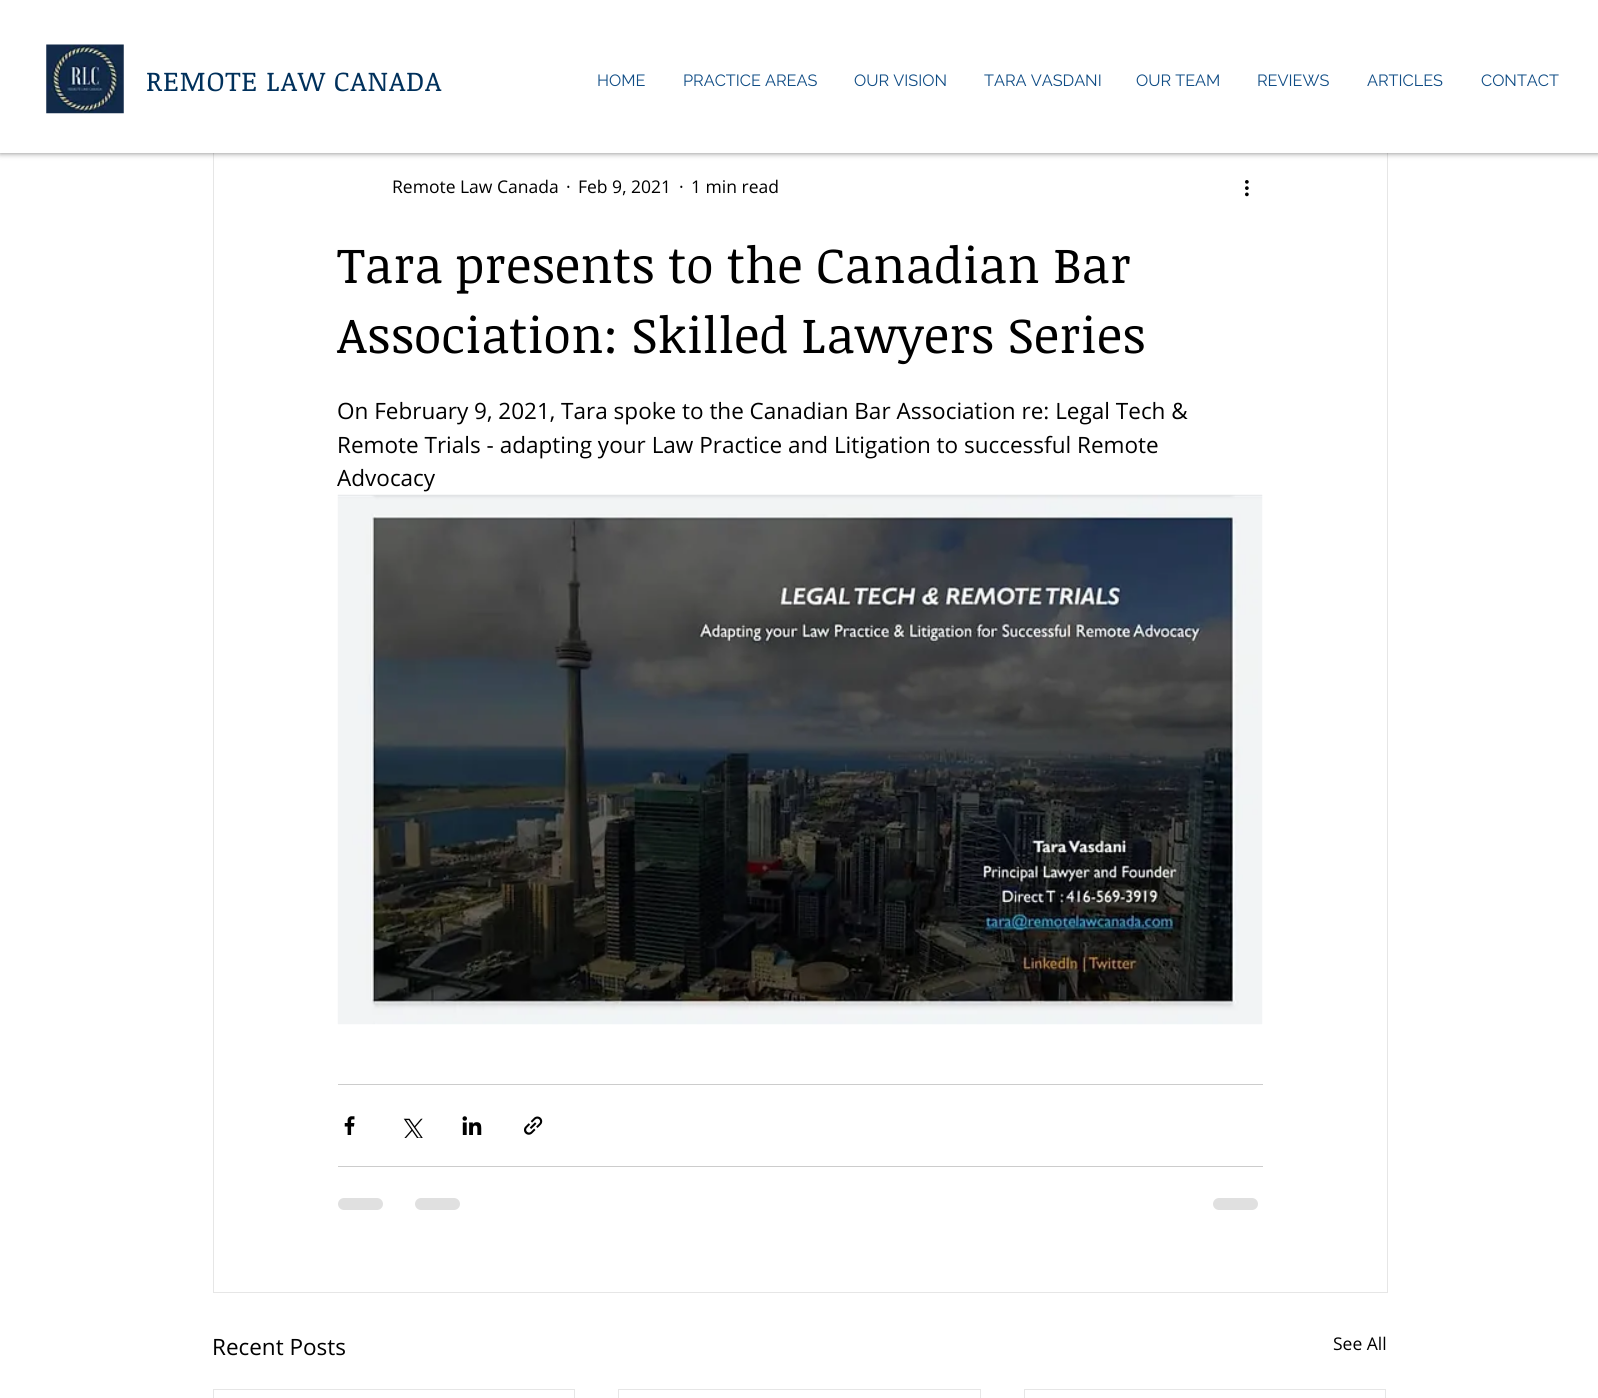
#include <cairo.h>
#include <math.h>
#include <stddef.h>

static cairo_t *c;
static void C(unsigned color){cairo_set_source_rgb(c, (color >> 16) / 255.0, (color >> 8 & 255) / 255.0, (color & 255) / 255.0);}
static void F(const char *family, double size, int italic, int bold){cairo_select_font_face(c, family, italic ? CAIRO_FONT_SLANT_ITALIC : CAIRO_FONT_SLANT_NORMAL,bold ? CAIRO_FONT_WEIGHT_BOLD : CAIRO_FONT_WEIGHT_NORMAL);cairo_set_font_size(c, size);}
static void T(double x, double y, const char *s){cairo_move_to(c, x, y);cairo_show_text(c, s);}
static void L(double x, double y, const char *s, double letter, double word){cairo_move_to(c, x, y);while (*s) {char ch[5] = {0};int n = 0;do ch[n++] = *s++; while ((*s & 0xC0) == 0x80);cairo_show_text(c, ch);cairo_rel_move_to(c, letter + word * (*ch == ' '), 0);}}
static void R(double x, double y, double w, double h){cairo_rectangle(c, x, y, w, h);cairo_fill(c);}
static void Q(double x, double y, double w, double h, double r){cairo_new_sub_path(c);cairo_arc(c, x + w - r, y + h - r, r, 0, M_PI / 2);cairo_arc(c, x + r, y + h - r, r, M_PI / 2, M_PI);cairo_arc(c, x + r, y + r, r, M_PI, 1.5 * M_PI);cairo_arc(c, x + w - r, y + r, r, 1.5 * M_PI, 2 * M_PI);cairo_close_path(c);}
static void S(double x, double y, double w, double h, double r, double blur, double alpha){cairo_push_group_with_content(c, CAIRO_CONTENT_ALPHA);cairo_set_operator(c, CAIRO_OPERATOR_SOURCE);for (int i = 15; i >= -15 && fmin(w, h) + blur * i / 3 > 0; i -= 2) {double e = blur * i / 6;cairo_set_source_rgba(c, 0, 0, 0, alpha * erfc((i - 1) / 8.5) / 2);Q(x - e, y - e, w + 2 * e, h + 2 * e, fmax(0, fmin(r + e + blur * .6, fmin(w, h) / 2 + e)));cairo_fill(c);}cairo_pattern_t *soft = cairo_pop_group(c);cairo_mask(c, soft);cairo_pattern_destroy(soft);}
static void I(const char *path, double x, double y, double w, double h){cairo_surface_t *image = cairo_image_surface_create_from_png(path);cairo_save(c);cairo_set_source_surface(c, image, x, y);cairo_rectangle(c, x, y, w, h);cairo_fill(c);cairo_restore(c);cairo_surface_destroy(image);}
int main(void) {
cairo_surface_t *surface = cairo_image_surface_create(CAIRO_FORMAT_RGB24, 1598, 1398);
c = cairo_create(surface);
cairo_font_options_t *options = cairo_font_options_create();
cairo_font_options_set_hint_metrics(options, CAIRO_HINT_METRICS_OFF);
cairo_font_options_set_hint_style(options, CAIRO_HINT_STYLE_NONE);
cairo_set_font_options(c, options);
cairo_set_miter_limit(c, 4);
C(0xffffff);
cairo_paint(c);
cairo_rectangle(c,213.5,90.5,1174,1202);
C(0xe6e6e6);
cairo_set_line_width(c,1);
cairo_stroke(c);
C(0x000000);
S(0,0,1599,153,0,3,.5);
C(0xffffff);
R(0,0,1598,153);
I("1.png",46,44,78,70);
F("Noticia Text",27.5,0,0);
C(0x00305b);
L(146,91,"REMOTE LAW CANADA",.8,0);
F("Raleway",16.25,0,0);
C(0x0f4c85);
T(597,86,"HOME");
T(683,86,"PRACTICE AREAS");
T(854,86,"OUR VISION");
T(984,86,"TARA VASDANI");
T(1136,86,"OUR TEAM");
T(1257,86,"REVIEWS");
T(1367,86,"ARTICLES");
T(1481,86,"CONTACT");
F("Open Sans",17.5,0,0);
C(0x000000);
T(392,193,"Remote Law Canada");
T(566,193,"·");
T(578,193,"Feb 9, 2021");
T(679,193,"·");
T(691,193,"1 min read");
I("2.png",1245,180,4,17);
F("Noticia Text",50,0,0);
T(337,283,"Tara presents to the Canadian Bar");
T(337,353,"Association: Skilled Lawyers Series");
F("Open Sans",22.5,0,0);
T(337,419,"On February 9, 2021, Tara spoke to the Canadian Bar Association re: Legal Tech &");
T(337,453,"Remote Trials - adapting your Law Practice and Litigation to successful Remote");
T(337,486,"Advocacy");
I("3.png",337,494,926,531);
C(0xcccccc);
R(338,1084,925,1);
I("4.png",344,1116,11,19);
I("5.png",403,1118,20,20);
I("6.png",462,1116,20,19);
I("7.png",524,1116,19,19);
R(338,1166,925,1);
C(0xe0e0e0);
Q(338,1198,45,12,6);
cairo_fill(c);
Q(415,1198,45,12,6);
cairo_fill(c);
Q(1213,1198,45,12,6);
cairo_fill(c);
C(0x000000);
T(212,1355,"Recent Posts");
F("Open Sans",17.5,0,0);
T(1333,1350,"See All");
cairo_rectangle(c,213.5,1389.5,361,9);
C(0xe6e6e6);
cairo_stroke(c);
cairo_rectangle(c,618.5,1389.5,362,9);
cairo_stroke(c);
cairo_rectangle(c,1024.5,1389.5,361,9);
cairo_stroke(c);
cairo_surface_write_to_png(surface, "o.png");
cairo_font_options_destroy(options);
cairo_destroy(c);
cairo_surface_destroy(surface);
return 0;
}
